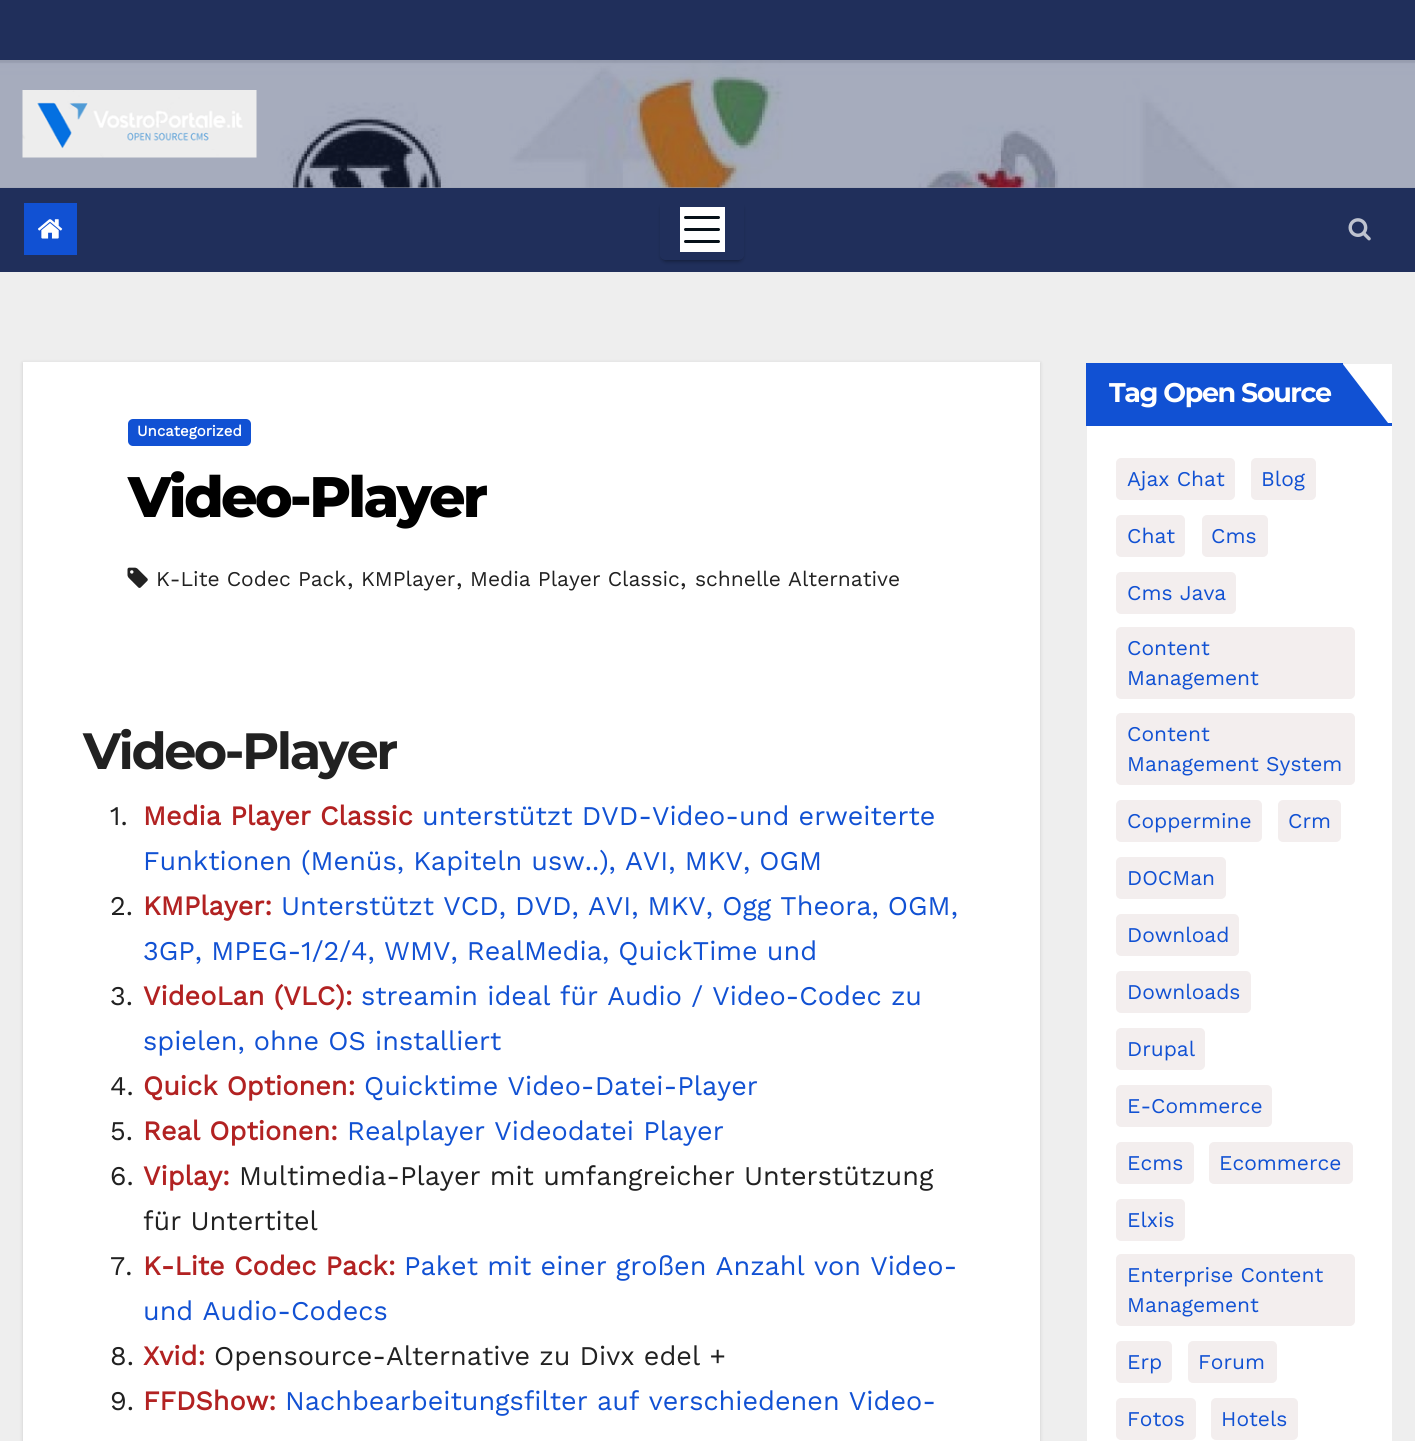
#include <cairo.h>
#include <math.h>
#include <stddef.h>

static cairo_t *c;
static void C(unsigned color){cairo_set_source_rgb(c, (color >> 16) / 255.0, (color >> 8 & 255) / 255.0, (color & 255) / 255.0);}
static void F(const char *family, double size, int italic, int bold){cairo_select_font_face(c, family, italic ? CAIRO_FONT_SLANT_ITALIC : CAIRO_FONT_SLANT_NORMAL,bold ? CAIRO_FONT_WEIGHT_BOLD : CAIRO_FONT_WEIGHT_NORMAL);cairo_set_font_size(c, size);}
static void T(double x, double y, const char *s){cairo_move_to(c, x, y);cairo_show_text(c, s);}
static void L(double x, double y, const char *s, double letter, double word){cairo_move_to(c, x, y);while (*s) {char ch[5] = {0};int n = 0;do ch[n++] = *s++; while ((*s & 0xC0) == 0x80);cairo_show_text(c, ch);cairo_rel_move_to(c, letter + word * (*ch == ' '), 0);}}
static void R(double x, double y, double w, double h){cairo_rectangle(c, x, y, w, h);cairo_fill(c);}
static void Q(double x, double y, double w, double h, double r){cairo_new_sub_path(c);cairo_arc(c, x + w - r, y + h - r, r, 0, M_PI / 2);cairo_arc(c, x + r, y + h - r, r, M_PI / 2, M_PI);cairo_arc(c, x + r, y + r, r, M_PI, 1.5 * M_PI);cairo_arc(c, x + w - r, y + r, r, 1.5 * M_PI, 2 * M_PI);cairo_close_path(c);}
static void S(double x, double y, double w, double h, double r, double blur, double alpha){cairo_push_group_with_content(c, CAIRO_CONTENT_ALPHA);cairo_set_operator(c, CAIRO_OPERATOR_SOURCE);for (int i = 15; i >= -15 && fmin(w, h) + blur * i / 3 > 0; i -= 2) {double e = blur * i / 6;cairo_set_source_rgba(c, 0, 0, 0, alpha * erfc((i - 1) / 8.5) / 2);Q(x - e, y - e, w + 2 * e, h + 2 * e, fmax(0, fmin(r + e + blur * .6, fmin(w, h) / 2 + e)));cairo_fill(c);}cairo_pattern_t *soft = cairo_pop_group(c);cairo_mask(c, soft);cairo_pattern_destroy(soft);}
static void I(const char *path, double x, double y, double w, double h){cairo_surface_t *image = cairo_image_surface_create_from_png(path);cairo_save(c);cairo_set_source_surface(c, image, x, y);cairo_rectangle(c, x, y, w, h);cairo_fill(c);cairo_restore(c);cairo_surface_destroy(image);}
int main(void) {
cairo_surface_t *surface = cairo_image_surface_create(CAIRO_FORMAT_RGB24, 1415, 1441);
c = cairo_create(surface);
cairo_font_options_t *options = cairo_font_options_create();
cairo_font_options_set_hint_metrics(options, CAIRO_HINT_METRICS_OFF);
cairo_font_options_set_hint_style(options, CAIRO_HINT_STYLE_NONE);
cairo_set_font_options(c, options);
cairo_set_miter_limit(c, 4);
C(0xeeeeee);
cairo_paint(c);
C(0x9ca2b3);
R(0,187,1415,1);
C(0x202f5b);
R(0,0,1415,60);
I("1.png",0,60,1415,128);
I("2.png",22,90,235,68);
R(0,188,1415,84);
C(0x1151d3);
R(24,203,53,52);
I("3.png",38,219,25,20);
cairo_save(c);
cairo_set_fill_rule(c,CAIRO_FILL_RULE_EVEN_ODD);
cairo_new_path(c);
cairo_move_to(c,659,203);
cairo_line_to(c,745,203);
cairo_line_to(c,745,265);
cairo_line_to(c,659,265);
cairo_close_path(c);
cairo_move_to(c,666,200);
cairo_line_to(c,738,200);
cairo_curve_to(c,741.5,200,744,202.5,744,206);
cairo_line_to(c,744,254);
cairo_curve_to(c,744,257.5,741.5,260,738,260);
cairo_line_to(c,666,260);
cairo_curve_to(c,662.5,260,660,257.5,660,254);
cairo_line_to(c,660,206);
cairo_curve_to(c,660,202.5,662.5,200,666,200);
cairo_close_path(c);
cairo_clip(c);
C(0x000000);
S(663,207,78,54,3,1,.2);
cairo_restore(c);
cairo_save(c);
cairo_set_fill_rule(c,CAIRO_FILL_RULE_EVEN_ODD);
cairo_new_path(c);
cairo_move_to(c,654,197);
cairo_line_to(c,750,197);
cairo_line_to(c,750,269);
cairo_line_to(c,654,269);
cairo_close_path(c);
cairo_move_to(c,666,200);
cairo_line_to(c,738,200);
cairo_curve_to(c,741.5,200,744,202.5,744,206);
cairo_line_to(c,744,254);
cairo_curve_to(c,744,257.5,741.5,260,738,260);
cairo_line_to(c,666,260);
cairo_curve_to(c,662.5,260,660,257.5,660,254);
cairo_line_to(c,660,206);
cairo_curve_to(c,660,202.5,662.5,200,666,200);
cairo_close_path(c);
cairo_clip(c);
C(0x000000);
S(660,203,84,60,6,1.5,.14);
cairo_restore(c);
C(0xffffff);
R(680,207,45,45);
cairo_new_path(c);
cairo_move_to(c,685.5,217.5);
cairo_line_to(c,718.5,217.5);
cairo_move_to(c,685.5,229.5);
cairo_line_to(c,718.5,229.5);
cairo_move_to(c,685.5,241.5);
cairo_line_to(c,718.5,241.5);
C(0x061018);
cairo_set_line_width(c,3);
cairo_set_line_cap(c,CAIRO_LINE_CAP_ROUND);
cairo_stroke(c);
I("4.png",1348,218,23,23);
C(0x000000);
S(23,363,1017,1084,0,2,.15);
C(0xffffff);
R(23,362,1017,1079);
C(0x1151d3);
Q(128,419,123,27,5);
cairo_fill(c);
F("Work Sans",15,0,1);
C(0xffffff);
T(137,436,"Uncategorized");
F("Montserrat ExtraBold",57,0,0);
C(0x000000);
L(128,517,"Video-Player",-2.8,0);
I("5.png",127,567,21,21);
F("Work Sans",21,0,0);
C(0x212121);
T(156,586,"K-Lite Codec Pack");
F("Work Sans",24,0,0);
T(347,586,",");
F("Work Sans",21,0,0);
T(361,586,"KMPlayer");
F("Work Sans",24,0,0);
T(456,586,",");
F("Work Sans",21,0,0);
T(470,586,"Media Player Classic");
F("Work Sans",24,0,0);
T(680,586,",");
F("Work Sans",21,0,0);
T(695,586,"schnelle Alternative");
F("Montserrat",51,0,1);
L(83,769,"Video-Player",-2.5,0);
F("Work Sans",27,0,0);
T(110,825,"1.");
F("Work Sans",27,0,1);
C(0xb22222);
T(143,825,"Media Player Classic");
F("Work Sans",27,0,0);
C(0x1151d3);
T(422,825,"unterstützt DVD-Video-und erweiterte");
T(143,870,"Funktionen (Menüs, Kapiteln usw..), AVI, MKV, OGM");
C(0x212121);
T(110,915,"2.");
F("Work Sans",27,0,1);
C(0xb22222);
T(143,915,"KMPlayer:");
F("Work Sans",27,0,0);
C(0x1151d3);
T(281,915,"Unterstützt VCD, DVD, AVI, MKV, Ogg Theora, OGM,");
T(143,960,"3GP, MPEG-1/2/4, WMV, RealMedia, QuickTime und");
C(0x212121);
T(110,1005,"3.");
F("Work Sans",27,0,1);
C(0xb22222);
T(143,1005,"VideoLan (VLC):");
F("Work Sans",27,0,0);
C(0x1151d3);
T(361,1005,"streamin ideal für Audio / Video-Codec zu");
T(143,1050,"spielen, ohne OS installiert");
C(0x212121);
T(110,1095,"4.");
F("Work Sans",27,0,1);
C(0xb22222);
T(143,1095,"Quick Optionen:");
F("Work Sans",27,0,0);
C(0x1151d3);
T(364,1095,"Quicktime Video-Datei-Player");
C(0x212121);
T(110,1140,"5.");
F("Work Sans",27,0,1);
C(0xb22222);
T(143,1140,"Real Optionen:");
F("Work Sans",27,0,0);
C(0x1151d3);
T(347,1140,"Realplayer Videodatei Player");
C(0x212121);
T(110,1185,"6.");
F("Work Sans",27,0,1);
C(0xb22222);
T(143,1185,"Viplay:");
F("Work Sans",27,0,0);
C(0x212121);
T(239,1185,"Multimedia-Player mit umfangreicher Unterstützung");
T(143,1230,"für Untertitel");
T(110,1275,"7.");
F("Work Sans",27,0,1);
C(0xb22222);
T(143,1275,"K-Lite Codec Pack:");
F("Work Sans",27,0,0);
C(0x1151d3);
T(404,1275,"Paket mit einer großen Anzahl von Video-");
T(143,1320,"und Audio-Codecs");
C(0x212121);
T(110,1365,"8.");
F("Work Sans",27,0,1);
C(0xb22222);
T(143,1365,"Xvid:");
F("Work Sans",27,0,0);
C(0x212121);
T(214,1365,"Opensource-Alternative zu Divx edel +");
T(110,1410,"9.");
F("Work Sans",27,0,1);
C(0xb22222);
T(143,1410,"FFDShow:");
F("Work Sans",27,0,0);
C(0x1151d3);
T(285,1410,"Nachbearbeitungsfilter auf verschiedenen Video-");
C(0xffffff);
R(1087,364,305,1077);
C(0x1151d3);
R(1086,423,306,3);
R(1086,363,257,60);
F("Montserrat",27,0,1);
C(0xffffff);
L(1109,402,"Tag Open Source",-1.4,0);
C(0x1151d3);
cairo_new_path(c);
cairo_move_to(c,1342,423);
cairo_line_to(c,1342,363);
cairo_line_to(c,1388,423);
cairo_close_path(c);
cairo_fill(c);
C(0xf3eeee);
Q(1117,459,117,40,4);
cairo_fill_preserve(c);
cairo_set_line_width(c,2);
cairo_set_line_cap(c,CAIRO_LINE_CAP_BUTT);
cairo_stroke(c);
F("Work Sans",21,0,0);
C(0x1151d3);
T(1127,486,"Ajax Chat");
C(0xf3eeee);
Q(1252,459,63,40,4);
cairo_fill_preserve(c);
cairo_stroke(c);
C(0x1151d3);
T(1261,486,"Blog");
C(0xf3eeee);
Q(1117,516,67,40,4);
cairo_fill_preserve(c);
cairo_stroke(c);
C(0x1151d3);
T(1127,543,"Chat");
C(0xf3eeee);
Q(1203,516,64,40,4);
cairo_fill_preserve(c);
cairo_stroke(c);
C(0x1151d3);
T(1211,543,"Cms");
C(0xf3eeee);
Q(1117,573,118,40,4);
cairo_fill_preserve(c);
cairo_stroke(c);
C(0x1151d3);
T(1127,600,"Cms Java");
C(0xf3eeee);
Q(1117,628,237,70,4);
cairo_fill_preserve(c);
cairo_stroke(c);
C(0x1151d3);
T(1127,655,"Content");
T(1127,685,"Management");
C(0xf3eeee);
Q(1117,714,237,70,4);
cairo_fill_preserve(c);
cairo_stroke(c);
C(0x1151d3);
T(1127,741,"Content");
T(1127,771,"Management System");
C(0xf3eeee);
Q(1117,801,144,40,4);
cairo_fill_preserve(c);
cairo_stroke(c);
C(0x1151d3);
T(1127,828,"Coppermine");
C(0xf3eeee);
Q(1279,801,61,40,4);
cairo_fill_preserve(c);
cairo_stroke(c);
C(0x1151d3);
T(1288,828,"Crm");
C(0xf3eeee);
Q(1117,858,108,40,4);
cairo_fill_preserve(c);
cairo_stroke(c);
C(0x1151d3);
T(1127,885,"DOCMan");
C(0xf3eeee);
Q(1117,915,121,40,4);
cairo_fill_preserve(c);
cairo_stroke(c);
C(0x1151d3);
T(1127,942,"Download");
C(0xf3eeee);
Q(1117,972,133,40,4);
cairo_fill_preserve(c);
cairo_stroke(c);
C(0x1151d3);
T(1127,999,"Downloads");
C(0xf3eeee);
Q(1117,1029,87,40,4);
cairo_fill_preserve(c);
cairo_stroke(c);
C(0x1151d3);
T(1127,1056,"Drupal");
C(0xf3eeee);
Q(1117,1086,154,40,4);
cairo_fill_preserve(c);
cairo_stroke(c);
C(0x1151d3);
T(1127,1113,"E-Commerce");
C(0xf3eeee);
Q(1117,1143,76,40,4);
cairo_fill_preserve(c);
cairo_stroke(c);
C(0x1151d3);
T(1127,1170,"Ecms");
C(0xf3eeee);
Q(1210,1143,142,40,4);
cairo_fill_preserve(c);
cairo_stroke(c);
C(0x1151d3);
T(1219,1170,"Ecommerce");
C(0xf3eeee);
Q(1117,1200,67,40,4);
cairo_fill_preserve(c);
cairo_stroke(c);
C(0x1151d3);
T(1127,1227,"Elxis");
C(0xf3eeee);
Q(1117,1255,237,70,4);
cairo_fill_preserve(c);
cairo_stroke(c);
C(0x1151d3);
T(1127,1282,"Enterprise Content");
T(1127,1312,"Management");
C(0xf3eeee);
Q(1117,1342,54,40,4);
cairo_fill_preserve(c);
cairo_stroke(c);
C(0x1151d3);
T(1127,1369,"Erp");
C(0xf3eeee);
Q(1189,1342,87,40,4);
cairo_fill_preserve(c);
cairo_stroke(c);
C(0x1151d3);
T(1198,1369,"Forum");
C(0xf3eeee);
Q(1117,1399,78,40,4);
cairo_fill_preserve(c);
cairo_stroke(c);
C(0x1151d3);
T(1127,1426,"Fotos");
C(0xf3eeee);
Q(1212,1399,85,40,4);
cairo_fill_preserve(c);
cairo_stroke(c);
C(0x1151d3);
T(1221,1426,"Hotels");
cairo_surface_write_to_png(surface, "o.png");
cairo_font_options_destroy(options);
cairo_destroy(c);
cairo_surface_destroy(surface);
return 0;
}
